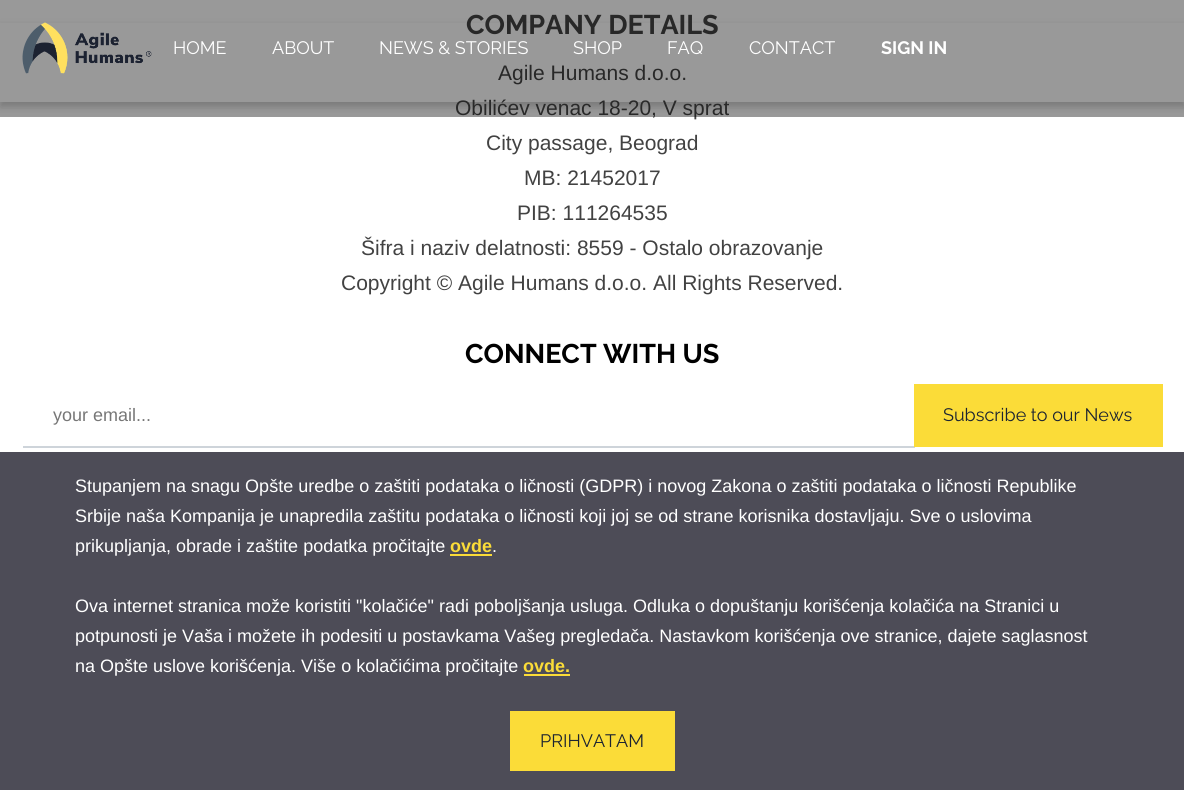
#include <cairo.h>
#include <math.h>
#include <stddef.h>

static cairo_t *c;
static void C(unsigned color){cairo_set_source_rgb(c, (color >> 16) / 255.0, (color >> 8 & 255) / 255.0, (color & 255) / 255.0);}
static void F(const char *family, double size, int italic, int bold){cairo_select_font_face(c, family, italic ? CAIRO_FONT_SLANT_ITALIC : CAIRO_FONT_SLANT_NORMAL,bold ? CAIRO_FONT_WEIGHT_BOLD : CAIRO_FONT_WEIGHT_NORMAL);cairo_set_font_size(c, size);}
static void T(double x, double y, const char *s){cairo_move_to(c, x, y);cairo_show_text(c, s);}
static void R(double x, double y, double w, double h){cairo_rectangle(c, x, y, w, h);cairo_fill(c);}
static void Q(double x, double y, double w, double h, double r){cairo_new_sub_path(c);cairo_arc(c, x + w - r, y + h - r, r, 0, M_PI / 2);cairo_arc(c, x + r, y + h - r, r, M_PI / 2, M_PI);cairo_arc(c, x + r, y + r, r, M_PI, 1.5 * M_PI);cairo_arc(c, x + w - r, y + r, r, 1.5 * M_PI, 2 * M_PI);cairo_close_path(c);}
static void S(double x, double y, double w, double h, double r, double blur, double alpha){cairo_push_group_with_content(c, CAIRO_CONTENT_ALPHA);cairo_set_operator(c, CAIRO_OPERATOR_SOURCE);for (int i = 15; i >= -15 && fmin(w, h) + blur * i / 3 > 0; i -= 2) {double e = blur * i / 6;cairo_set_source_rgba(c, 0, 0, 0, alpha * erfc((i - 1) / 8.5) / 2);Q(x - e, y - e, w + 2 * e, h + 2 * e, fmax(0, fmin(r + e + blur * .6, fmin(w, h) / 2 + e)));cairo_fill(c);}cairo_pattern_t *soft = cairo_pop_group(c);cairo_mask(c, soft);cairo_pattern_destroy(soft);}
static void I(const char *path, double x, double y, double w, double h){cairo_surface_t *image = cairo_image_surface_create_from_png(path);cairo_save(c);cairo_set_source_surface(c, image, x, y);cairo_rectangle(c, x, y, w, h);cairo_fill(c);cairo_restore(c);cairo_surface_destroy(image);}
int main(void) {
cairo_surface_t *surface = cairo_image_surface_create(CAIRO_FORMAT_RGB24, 1184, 790);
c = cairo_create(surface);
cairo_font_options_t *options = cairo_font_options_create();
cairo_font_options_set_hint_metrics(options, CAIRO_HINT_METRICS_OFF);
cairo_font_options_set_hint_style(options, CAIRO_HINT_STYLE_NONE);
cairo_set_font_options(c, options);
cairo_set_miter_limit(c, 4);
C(0xffffff);
cairo_paint(c);
F("Raleway",27,0,1);
C(0x424242);
T(466,34,"COMPANY DETAILS");
F("Liberation Sans",21,0,0);
T(498,80,"Agile Humans d.o.o.");
T(455,115,"Obilićev venac 18-20, V sprat");
T(486,150,"City passage, Beograd");
T(524,185,"MB: 21452017");
T(517,220,"PIB: 111264535");
T(361,255,"Šifra i naziv delatnosti: 8559 - Ostalo obrazovanje");
T(341,290,"Copyright © Agile Humans d.o.o. All Rights Reserved.");
F("Raleway",27,0,1);
C(0x000000);
T(465,363,"CONNECT WITH US");
C(0xced4da);
R(23,446,892,2);
F("Liberation Sans",18,0,0);
C(0x777777);
T(53,421,"your email...");
C(0xfbdc38);
R(914,384,249,63);
F("Raleway",18,0,0);
C(0x1c2431);
T(943,421,"Subscribe to our News");
cairo_set_source_rgba(c,0,0,0,0.4);
R(0,0,1184,117);
cairo_save(c);
cairo_set_fill_rule(c,CAIRO_FILL_RULE_EVEN_ODD);
cairo_new_path(c);
cairo_move_to(c,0,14);
cairo_line_to(c,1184,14);
cairo_line_to(c,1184,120);
cairo_line_to(c,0,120);
cairo_close_path(c);
cairo_move_to(c,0,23);
cairo_line_to(c,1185,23);
cairo_line_to(c,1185,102);
cairo_line_to(c,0,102);
cairo_close_path(c);
cairo_clip(c);
C(0x323232);
S(0,27,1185,80,0,4,.3);
cairo_restore(c);
I("1.png",22,22,130,52);
C(0xffffff);
T(173,54,"HOME");
T(272,54,"ABOUT");
T(379,54,"NEWS & STORIES");
T(573,54,"SHOP");
T(667,54,"FAQ");
T(749,54,"CONTACT");
F("Raleway",18,0,1);
T(881,54,"SIGN IN");
C(0x4d4c57);
R(0,452,1184,338);
F("Liberation Sans",18,0,0);
C(0xffffff);
T(75,492,"Stupanjem na snagu Opšte uredbe o zaštiti podataka o ličnosti (GDPR) i novog Zakona o zaštiti podataka o ličnosti Republike");
T(75,522,"Srbije naša Kompanija je unapredila zaštitu podataka o ličnosti koji joj se od strane korisnika dostavljaju. Sve o uslovima");
T(75,552,"prikupljanja, obrade i zaštite podatka pročitajte");
F("Liberation Sans",18,0,1);
C(0xfbdc38);
T(450,552,"ovde");
R(450,554,42,2);
F("Liberation Sans",18,0,0);
C(0xffffff);
T(492,552,".");
T(75,612,"Ova internet stranica može koristiti \"kolačiće\" radi poboljšanja usluga. Odluka o dopuštanju korišćenja kolačića na Stranici u");
T(75,642,"potpunosti je Vaša i možete ih podesiti u postavkama Vašeg pregledača. Nastavkom korišćenja ove stranice, dajete saglasnost");
T(75,672,"na Opšte uslove korišćenja. Više o kolačićima pročitajte");
F("Liberation Sans",18,0,1);
C(0xfbdc38);
T(523,672,"ovde.");
R(524,674,46,2);
R(510,711,165,60);
F("Raleway",18,0,0);
C(0x1c2431);
T(540,747,"PRIHVATAM");
cairo_surface_write_to_png(surface, "o.png");
cairo_font_options_destroy(options);
cairo_destroy(c);
cairo_surface_destroy(surface);
return 0;
}
